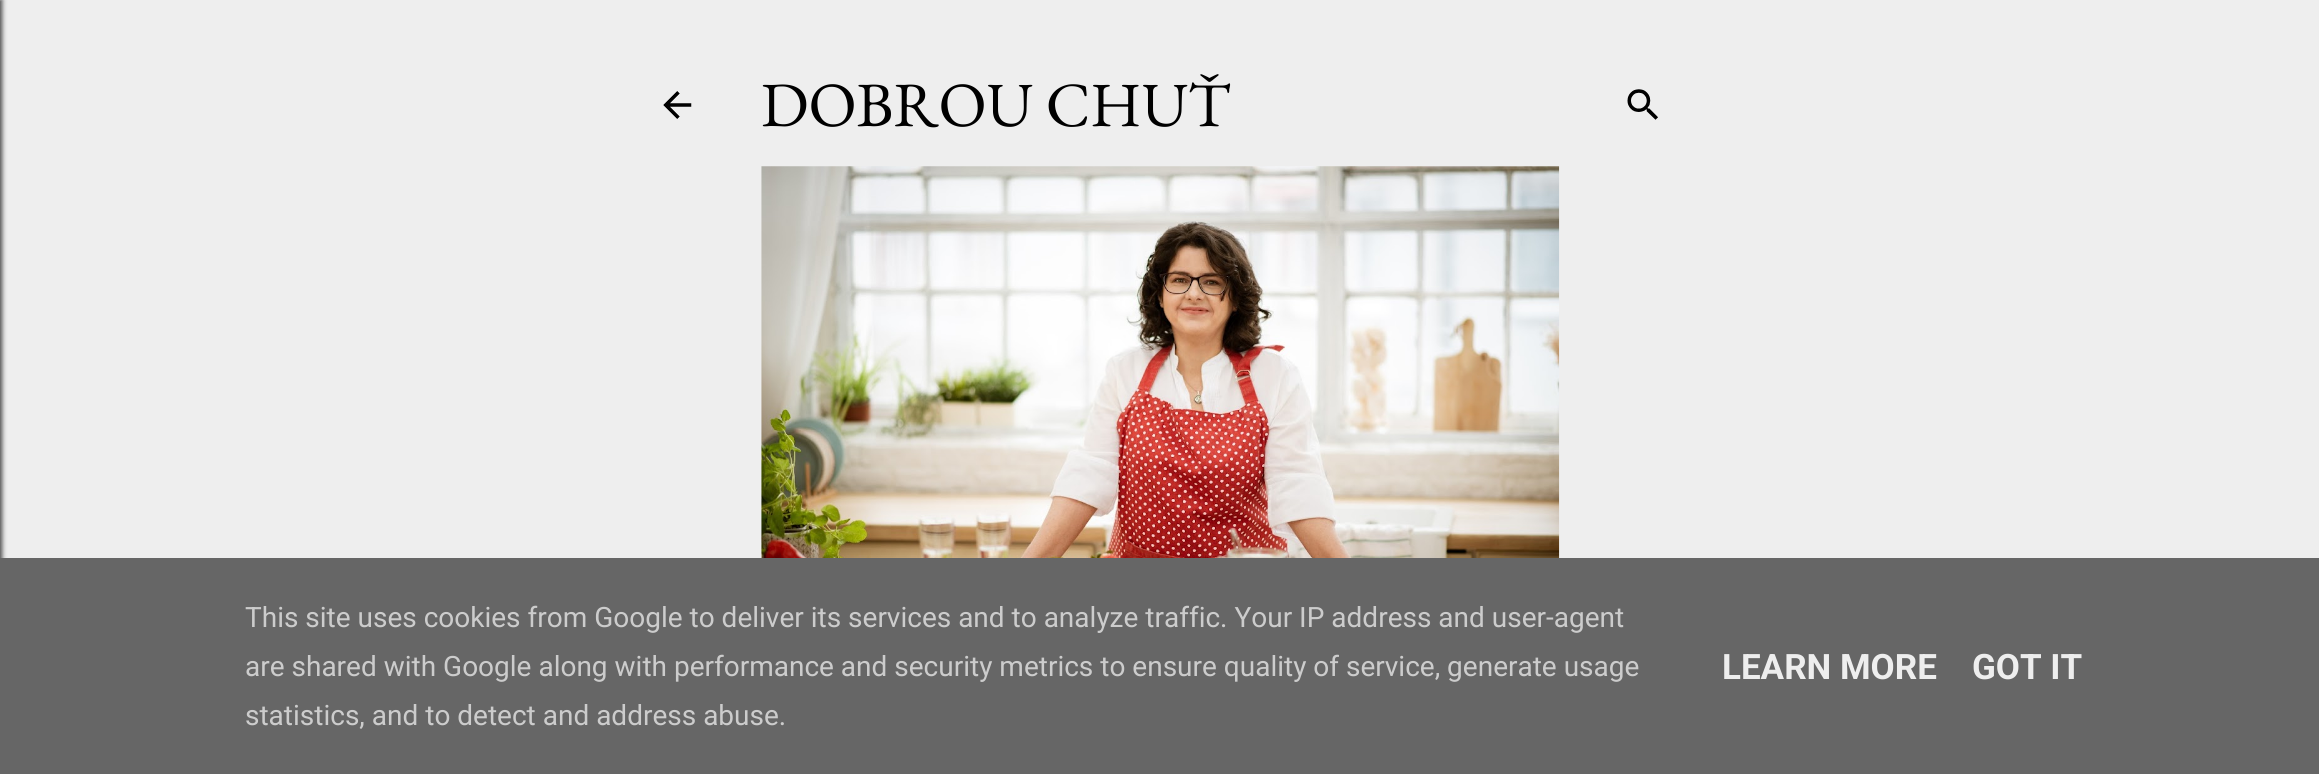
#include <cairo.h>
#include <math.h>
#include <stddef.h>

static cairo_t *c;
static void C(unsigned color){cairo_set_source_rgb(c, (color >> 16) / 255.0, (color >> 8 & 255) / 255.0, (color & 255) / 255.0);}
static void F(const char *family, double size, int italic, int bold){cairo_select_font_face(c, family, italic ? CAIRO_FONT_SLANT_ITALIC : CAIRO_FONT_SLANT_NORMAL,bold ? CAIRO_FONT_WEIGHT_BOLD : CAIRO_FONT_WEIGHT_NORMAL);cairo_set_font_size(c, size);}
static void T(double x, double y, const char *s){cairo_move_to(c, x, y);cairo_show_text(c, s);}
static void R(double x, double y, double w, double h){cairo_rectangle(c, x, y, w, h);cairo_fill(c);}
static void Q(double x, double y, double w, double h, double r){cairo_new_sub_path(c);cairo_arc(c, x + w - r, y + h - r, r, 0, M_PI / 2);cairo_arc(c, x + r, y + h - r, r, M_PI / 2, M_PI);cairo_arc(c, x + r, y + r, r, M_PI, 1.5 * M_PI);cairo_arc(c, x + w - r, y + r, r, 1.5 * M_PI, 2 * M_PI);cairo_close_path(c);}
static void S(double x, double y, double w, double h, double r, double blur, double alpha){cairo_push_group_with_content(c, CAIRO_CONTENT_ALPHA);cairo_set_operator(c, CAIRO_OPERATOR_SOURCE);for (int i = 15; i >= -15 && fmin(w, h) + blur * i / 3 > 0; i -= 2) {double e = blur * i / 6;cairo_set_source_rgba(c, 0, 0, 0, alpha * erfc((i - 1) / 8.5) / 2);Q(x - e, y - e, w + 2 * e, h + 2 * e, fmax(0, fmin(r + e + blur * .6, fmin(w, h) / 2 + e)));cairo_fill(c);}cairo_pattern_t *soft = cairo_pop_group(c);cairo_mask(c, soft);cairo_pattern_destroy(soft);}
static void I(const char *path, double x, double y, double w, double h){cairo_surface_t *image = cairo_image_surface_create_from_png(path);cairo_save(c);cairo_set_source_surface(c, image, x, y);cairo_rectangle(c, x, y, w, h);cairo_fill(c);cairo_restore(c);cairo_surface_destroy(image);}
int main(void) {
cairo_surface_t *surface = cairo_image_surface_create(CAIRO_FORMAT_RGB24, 2319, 774);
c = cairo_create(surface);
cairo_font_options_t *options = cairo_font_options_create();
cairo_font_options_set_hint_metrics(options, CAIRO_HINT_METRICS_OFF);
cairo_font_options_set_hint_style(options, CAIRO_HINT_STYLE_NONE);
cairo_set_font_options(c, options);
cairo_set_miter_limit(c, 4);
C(0xeeeeee);
cairo_paint(c);
C(0x424242);
S(-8,0,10,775,0,2.5,1);
I("1.png",663,91,29,28);
F("EB Garamond",63,0,0);
C(0x000000);
T(761,126,"DOBROU CHUŤ");
I("2.png",761,166,799,392);
I("3.png",1627,89,31,31);
C(0x666666);
R(0,558,2319,216);
F("Roboto",28,0,0);
C(0xcccccc);
T(245,627,"This site uses cookies from Google to deliver its services and to analyze traffic. Your IP address and user-agent");
T(245,676,"are shared with Google along with performance and security metrics to ensure quality of service, generate usage");
T(245,725,"statistics, and to detect and address abuse.");
F("Roboto",35,0,1);
C(0xeeeeee);
T(1722,679,"LEARN MORE");
T(1972,679,"GOT IT");
cairo_surface_write_to_png(surface, "o.png");
cairo_font_options_destroy(options);
cairo_destroy(c);
cairo_surface_destroy(surface);
return 0;
}
